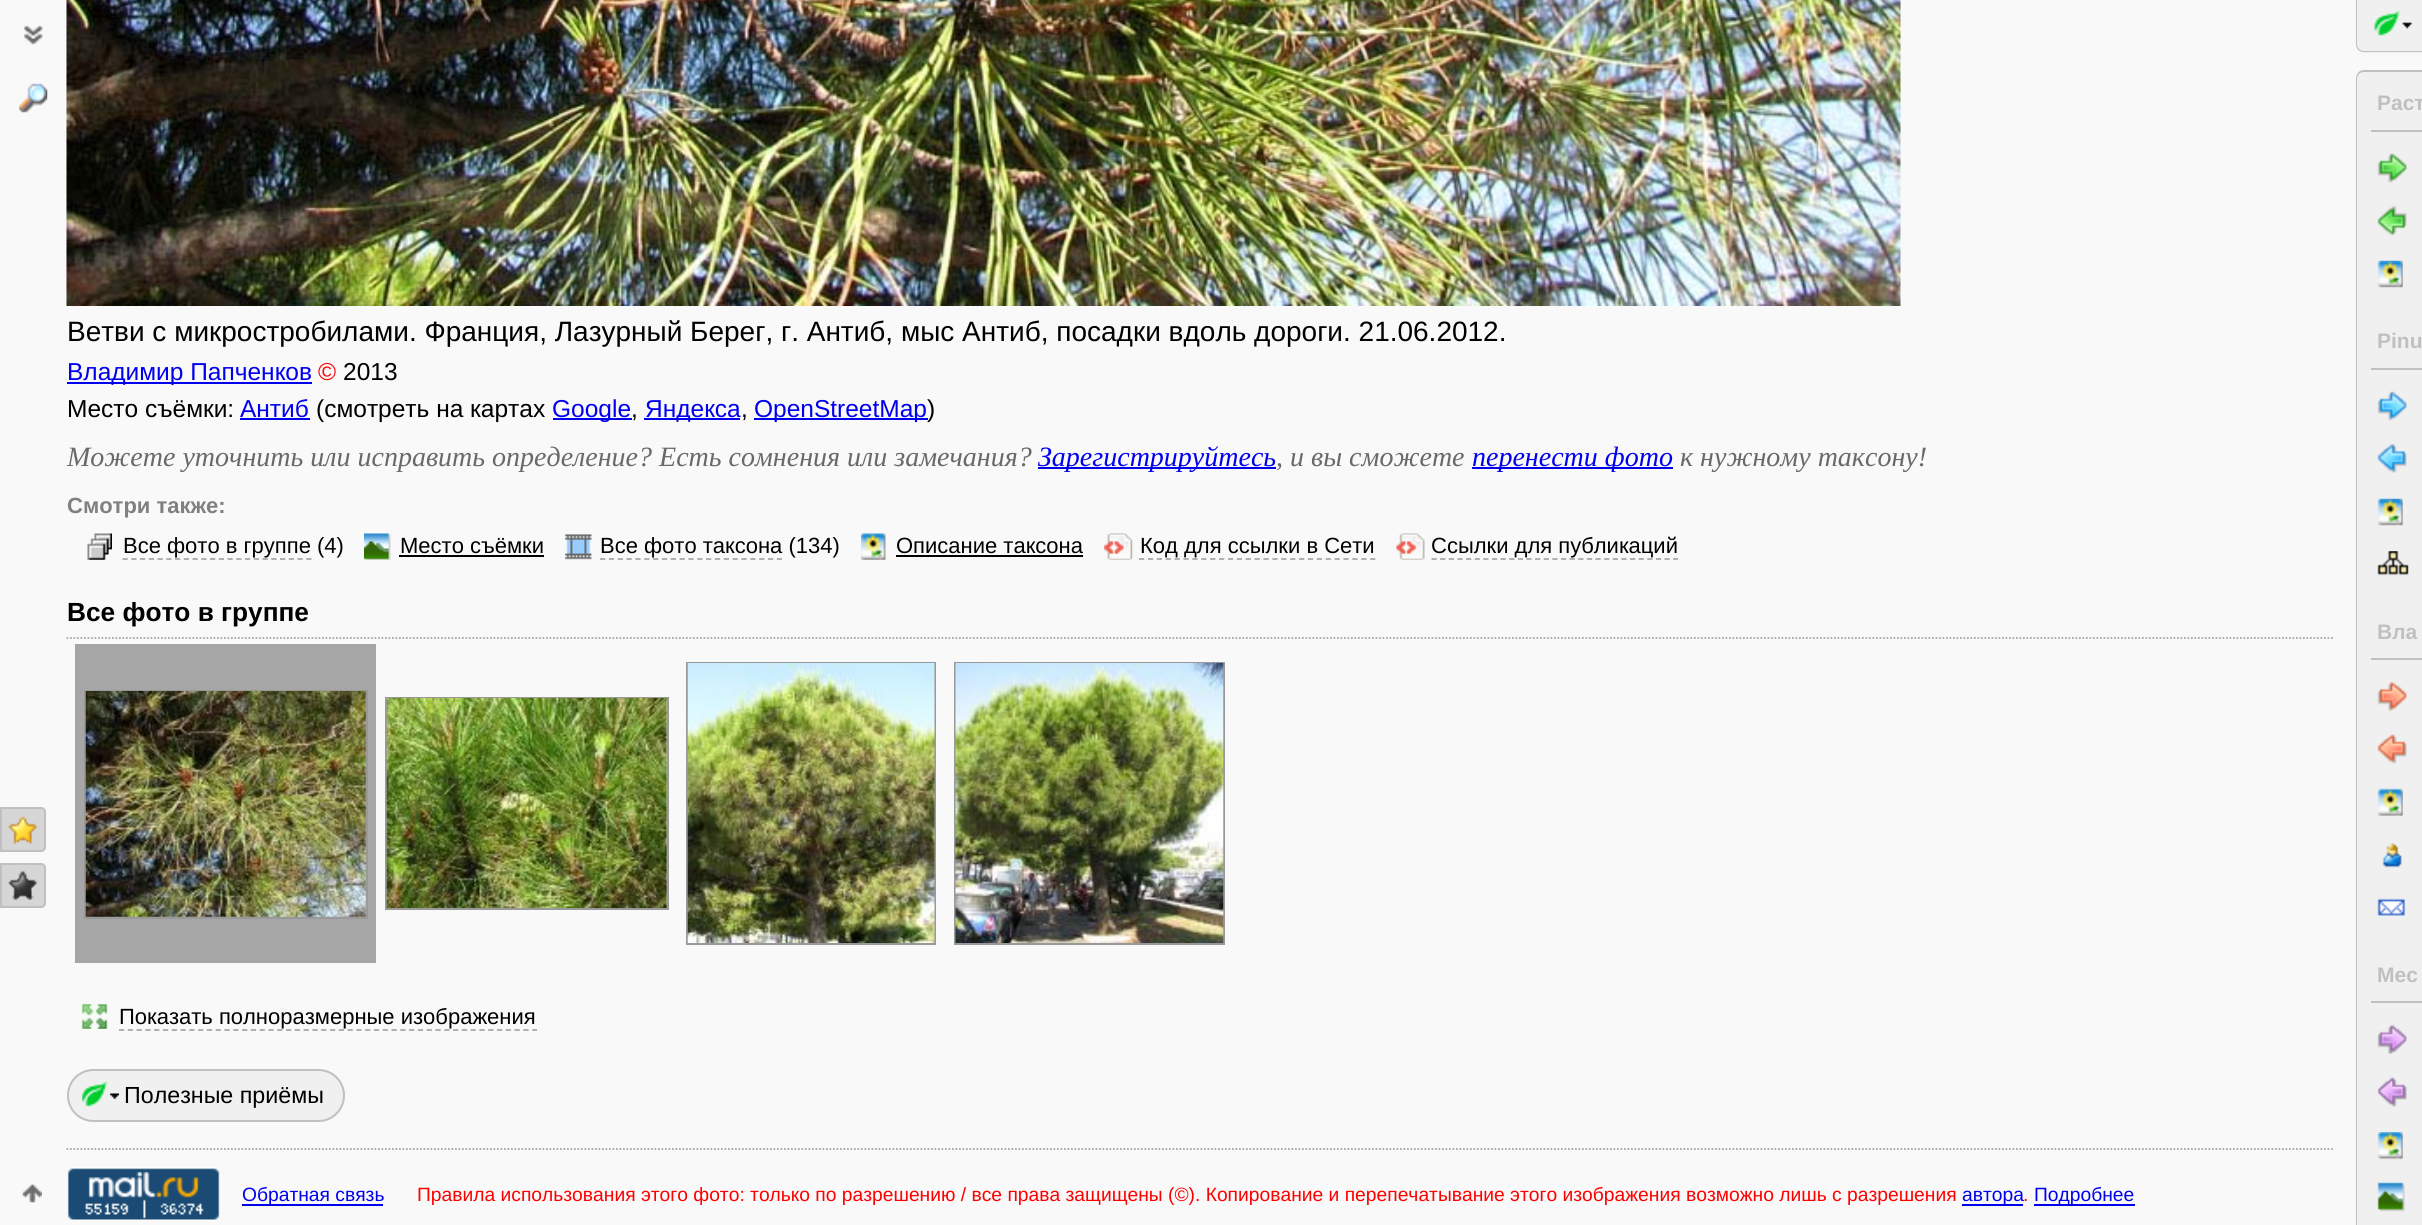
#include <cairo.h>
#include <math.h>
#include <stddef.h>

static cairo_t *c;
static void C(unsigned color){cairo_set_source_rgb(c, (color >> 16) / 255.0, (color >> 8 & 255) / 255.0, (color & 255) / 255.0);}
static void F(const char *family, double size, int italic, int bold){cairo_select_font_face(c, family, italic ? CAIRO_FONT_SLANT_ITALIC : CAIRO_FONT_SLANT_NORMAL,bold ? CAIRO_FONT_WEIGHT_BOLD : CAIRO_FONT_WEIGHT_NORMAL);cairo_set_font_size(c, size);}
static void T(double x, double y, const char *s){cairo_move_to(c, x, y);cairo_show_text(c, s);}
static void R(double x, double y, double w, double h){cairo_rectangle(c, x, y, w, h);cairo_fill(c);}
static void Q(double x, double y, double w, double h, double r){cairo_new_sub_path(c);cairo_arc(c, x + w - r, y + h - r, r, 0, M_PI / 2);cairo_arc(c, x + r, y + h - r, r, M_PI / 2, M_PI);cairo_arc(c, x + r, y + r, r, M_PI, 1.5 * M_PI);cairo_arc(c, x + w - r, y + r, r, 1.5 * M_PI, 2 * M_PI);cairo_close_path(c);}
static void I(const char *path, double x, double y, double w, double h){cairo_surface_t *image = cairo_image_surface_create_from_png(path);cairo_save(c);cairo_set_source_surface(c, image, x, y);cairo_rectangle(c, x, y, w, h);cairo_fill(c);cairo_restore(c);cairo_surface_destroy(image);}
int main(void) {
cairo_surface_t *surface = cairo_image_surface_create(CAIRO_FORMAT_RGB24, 2422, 1225);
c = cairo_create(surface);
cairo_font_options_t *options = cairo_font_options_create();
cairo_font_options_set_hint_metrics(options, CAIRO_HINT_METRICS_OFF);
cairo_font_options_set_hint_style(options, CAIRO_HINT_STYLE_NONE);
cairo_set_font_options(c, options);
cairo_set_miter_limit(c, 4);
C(0xf9f9f9);
cairo_paint(c);
I("1.png",24,25,19,20);
I("2.png",19,83,29,30);
C(0xd6d6d6);
cairo_new_path(c);
cairo_move_to(c,0,807);
cairo_line_to(c,41,807);
cairo_curve_to(c,44,807,46,809,46,812);
cairo_line_to(c,46,847);
cairo_curve_to(c,46,850,44,852,41,852);
cairo_line_to(c,0,852);
cairo_close_path(c);
cairo_fill(c);
I("3.png",8,816,29,28);
cairo_new_path(c);
cairo_move_to(c,1,808);
cairo_line_to(c,41,808);
cairo_curve_to(c,43,808,45,810,45,812);
cairo_line_to(c,45,847);
cairo_curve_to(c,45,849,43,851,41,851);
cairo_line_to(c,1,851);
cairo_close_path(c);
C(0xc0c0c0);
cairo_stroke(c);
C(0xd6d6d6);
cairo_new_path(c);
cairo_move_to(c,0,863);
cairo_line_to(c,41,863);
cairo_curve_to(c,44,863,46,865,46,868);
cairo_line_to(c,46,903);
cairo_curve_to(c,46,906,44,908,41,908);
cairo_line_to(c,0,908);
cairo_close_path(c);
cairo_fill(c);
I("4.png",8,870,29,30);
cairo_new_path(c);
cairo_move_to(c,1,864);
cairo_line_to(c,41,864);
cairo_curve_to(c,43,864,45,866,45,868);
cairo_line_to(c,45,903);
cairo_curve_to(c,45,905,43,907,41,907);
cairo_line_to(c,1,907);
cairo_close_path(c);
C(0xc0c0c0);
cairo_stroke(c);
I("5.png",66,0,1835,306);
F("Liberation Sans",28,0,0);
C(0x000000);
T(67,341,"Ветви с микростробилами. Франция, Лазурный Берег, г. Антиб, мыс Антиб, посадки вдоль дороги. 21.06.2012.");
C(0x0000ee);
R(67,382,245,2);
F("Liberation Sans",24.5,0,0);
T(67,380,"Владимир Папченков");
C(0xff0000);
T(318,380,"©");
C(0x000000);
T(343,380,"2013");
T(67,417,"Место съёмки:");
C(0x0000ee);
T(240,417,"Антиб");
R(240,418,70,2);
C(0x000000);
T(316,417,"(смотреть на картах");
C(0x0000ee);
R(553,418,79,2);
T(552,417,"Google");
C(0x000000);
T(631,417,",");
C(0x0000ee);
R(644,418,96,2);
T(645,417,"Яндекса");
C(0x000000);
T(741,417,",");
C(0x0000ee);
R(754,418,174,2);
T(754,417,"OpenStreetMap");
C(0x000000);
T(927,417,")");
F("Liberation Serif",28,1,0);
C(0x696969);
T(67,466,"Можете уточнить или исправить определение? Есть сомнения или замечания?");
C(0x0000ee);
R(1038,467,238,2);
T(1038,466,"Зарегистрируйтесь");
C(0x696969);
T(1276,466,", и вы сможете");
C(0x0000ee);
R(1472,467,201,2);
T(1472,466,"перенести фото");
C(0x696969);
T(1680,466,"к нужному таксону!");
F("Liberation Sans",22,0,1);
C(0x808080);
T(67,513,"Смотри также:");
I("6.png",87,533,25,27);
F("Liberation Sans",22,0,0);
C(0x000000);
T(123,553,"Все фото в группе (4)");
cairo_new_path(c);
cairo_move_to(c,122.5,559);
cairo_line_to(c,311.5,559);
C(0xa9a9a9);
cairo_set_line_width(c,1.8);
cairo_set_dash(c,(double[]){5.25,3.5},2,0);
cairo_stroke(c);
I("7.png",364,533,27,27);
C(0x000000);
T(400,553,"Место съёмки");
R(399,555,145,2);
I("8.png",565,534,27,26);
T(600,553,"Все фото таксона (134)");
cairo_new_path(c);
cairo_move_to(c,600,559);
cairo_line_to(c,782,559);
C(0xa9a9a9);
cairo_set_dash(c,(double[]){5.25,3.59},2,0);
cairo_stroke(c);
I("9.png",861,533,25,27);
C(0x000000);
T(896,553,"Описание таксона");
R(896,555,187,2);
I("10.png",1104,533,29,27);
T(1140,553,"Код для ссылки в Сети");
cairo_new_path(c);
cairo_move_to(c,1139,559);
cairo_line_to(c,1375.5,559);
C(0xa9a9a9);
cairo_set_dash(c,(double[]){5.25,3.64},2,0);
cairo_stroke(c);
I("11.png",1396,533,29,27);
C(0x000000);
T(1431,553,"Ссылки для публикаций");
cairo_new_path(c);
cairo_move_to(c,1431.5,559);
cairo_line_to(c,1678,559);
C(0xa9a9a9);
cairo_set_dash(c,(double[]){5.25,3.38},2,0);
cairo_stroke(c);
cairo_new_path(c);
cairo_move_to(c,66.5,638);
cairo_line_to(c,2334.5,638);
C(0xa6a6a6);
cairo_set_dash(c,(double[]){1.75,1.75},2,0);
cairo_stroke(c);
F("Liberation Sans",26.25,0,1);
C(0x000000);
T(67,621,"Все фото в группе");
C(0xa6a6a6);
R(75,644,301,319);
cairo_rectangle(c,85,691,282,227);
C(0x999999);
cairo_set_line_width(c,2);
cairo_set_dash(c,NULL,0,0);
cairo_stroke(c);
I("12.png",85,691,281,226);
cairo_rectangle(c,386,698,282,211);
cairo_stroke(c);
I("13.png",386,698,281,210);
cairo_rectangle(c,687,663,248,281);
cairo_stroke(c);
I("14.png",687,663,248,280);
cairo_rectangle(c,955,663,269,281);
cairo_stroke(c);
I("15.png",955,663,269,280);
I("16.png",81,1004,27,25);
F("Liberation Sans",22,0,0);
C(0x000000);
T(119,1024,"Показать полноразмерные изображения");
cairo_new_path(c);
cairo_move_to(c,119,1030);
cairo_line_to(c,537,1030);
C(0xa9a9a9);
cairo_set_line_width(c,1.8);
cairo_set_dash(c,(double[]){5.25,3.54},2,0);
cairo_stroke(c);
C(0xf0f0f0);
Q(67,1069,278,53,26.5);
cairo_fill(c);
I("17.png",110,1093,9,6);
Q(68,1070,276,51,25.5);
C(0xc0c0c0);
cairo_set_line_width(c,2);
cairo_set_dash(c,NULL,0,0);
cairo_stroke(c);
I("18.png",81,1081,27,26);
F("Liberation Sans",23.25,0,0);
C(0x000000);
T(124,1103,"Полезные приёмы");
C(0xf0f0f0);
cairo_new_path(c);
cairo_move_to(c,2356,0);
cairo_line_to(c,2422,0);
cairo_line_to(c,2422,53);
cairo_line_to(c,2365,53);
cairo_curve_to(c,2360,53,2356,49,2356,44);
cairo_close_path(c);
cairo_fill(c);
I("19.png",2373,10,28,26);
C(0xc0c0c0);
cairo_set_fill_rule(c,CAIRO_FILL_RULE_EVEN_ODD);
cairo_new_path(c);
cairo_move_to(c,2356,0);
cairo_line_to(c,2422,0);
cairo_line_to(c,2422,52);
cairo_line_to(c,2364,52);
cairo_curve_to(c,2359,52,2356,49,2356,44);
cairo_close_path(c);
cairo_move_to(c,2357,0);
cairo_line_to(c,2422,0);
cairo_line_to(c,2422,51);
cairo_line_to(c,2364,51);
cairo_curve_to(c,2360,51,2357,48,2357,44);
cairo_close_path(c);
cairo_fill(c);
I("20.png",2402,22,10,7);
C(0xf0f0f0);
cairo_new_path(c);
cairo_move_to(c,2365,70);
cairo_line_to(c,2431,70);
cairo_line_to(c,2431,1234);
cairo_line_to(c,2365,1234);
cairo_curve_to(c,2360,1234,2356,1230,2356,1225);
cairo_line_to(c,2356,79);
cairo_curve_to(c,2356,74,2360,70,2365,70);
cairo_close_path(c);
cairo_fill(c);
C(0xc0c0c0);
cairo_new_path(c);
cairo_move_to(c,2364,70);
cairo_line_to(c,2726,70);
cairo_line_to(c,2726,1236);
cairo_line_to(c,2364,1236);
cairo_curve_to(c,2359,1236,2356,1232,2356,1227);
cairo_line_to(c,2356,79);
cairo_curve_to(c,2356,74,2359,70,2364,70);
cairo_close_path(c);
cairo_move_to(c,2364,72);
cairo_line_to(c,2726,72);
cairo_line_to(c,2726,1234);
cairo_line_to(c,2364,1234);
cairo_curve_to(c,2360,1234,2357,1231,2357,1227);
cairo_line_to(c,2357,79);
cairo_curve_to(c,2357,75,2360,72,2364,72);
cairo_close_path(c);
cairo_fill(c);
R(2371,130,51,2);
F("Liberation Sans",21,0,1);
T(2377,110,"Раст");
I("21.png",2377,153,30,30);
I("22.png",2377,206,30,30);
I("23.png",2377,260,26,28);
R(2371,368,51,2);
T(2377,348,"Pinu");
I("24.png",2377,391,30,30);
I("25.png",2377,444,30,29);
I("23.png",2377,498,26,28);
I("26.png",2377,551,32,25);
R(2371,658,51,2);
T(2377,639,"Вла");
I("27.png",2377,681,30,30);
I("28.png",2377,734,30,30);
I("29.png",2377,788,26,28);
I("30.png",2382,842,20,26);
I("31.png",2377,898,28,18);
R(2371,1001,51,2);
T(2377,982,"Мес");
I("32.png",2377,1024,30,30);
I("33.png",2377,1077,30,30);
I("34.png",2377,1132,26,28);
I("35.png",2377,1182,28,30);
cairo_new_path(c);
cairo_move_to(c,66.5,1149);
cairo_line_to(c,2334.5,1149);
C(0xa6a6a6);
cairo_set_line_width(c,1.8);
cairo_set_dash(c,(double[]){1.75,1.75},2,0);
cairo_stroke(c);
I("36.png",22,1184,20,19);
I("37.png",67,1167,153,54);
C(0x0000ee);
R(242,1204,141,2);
F("Liberation Sans",19.25,0,0);
T(242,1201,"Обратная связь");
C(0xff0000);
T(417,1201,"Правила использования этого фото: только по разрешению / все права защищены (©). Копирование и перепечатывание этого изображения возможно лишь с разрешения");
C(0x0000ee);
R(1962,1204,61,2);
T(1962,1201,"автора");
C(0xff0000);
T(2023,1201,".");
C(0x0000ee);
R(2034,1204,101,2);
T(2034,1201,"Подробнее");
cairo_surface_write_to_png(surface, "o.png");
cairo_font_options_destroy(options);
cairo_destroy(c);
cairo_surface_destroy(surface);
return 0;
}
